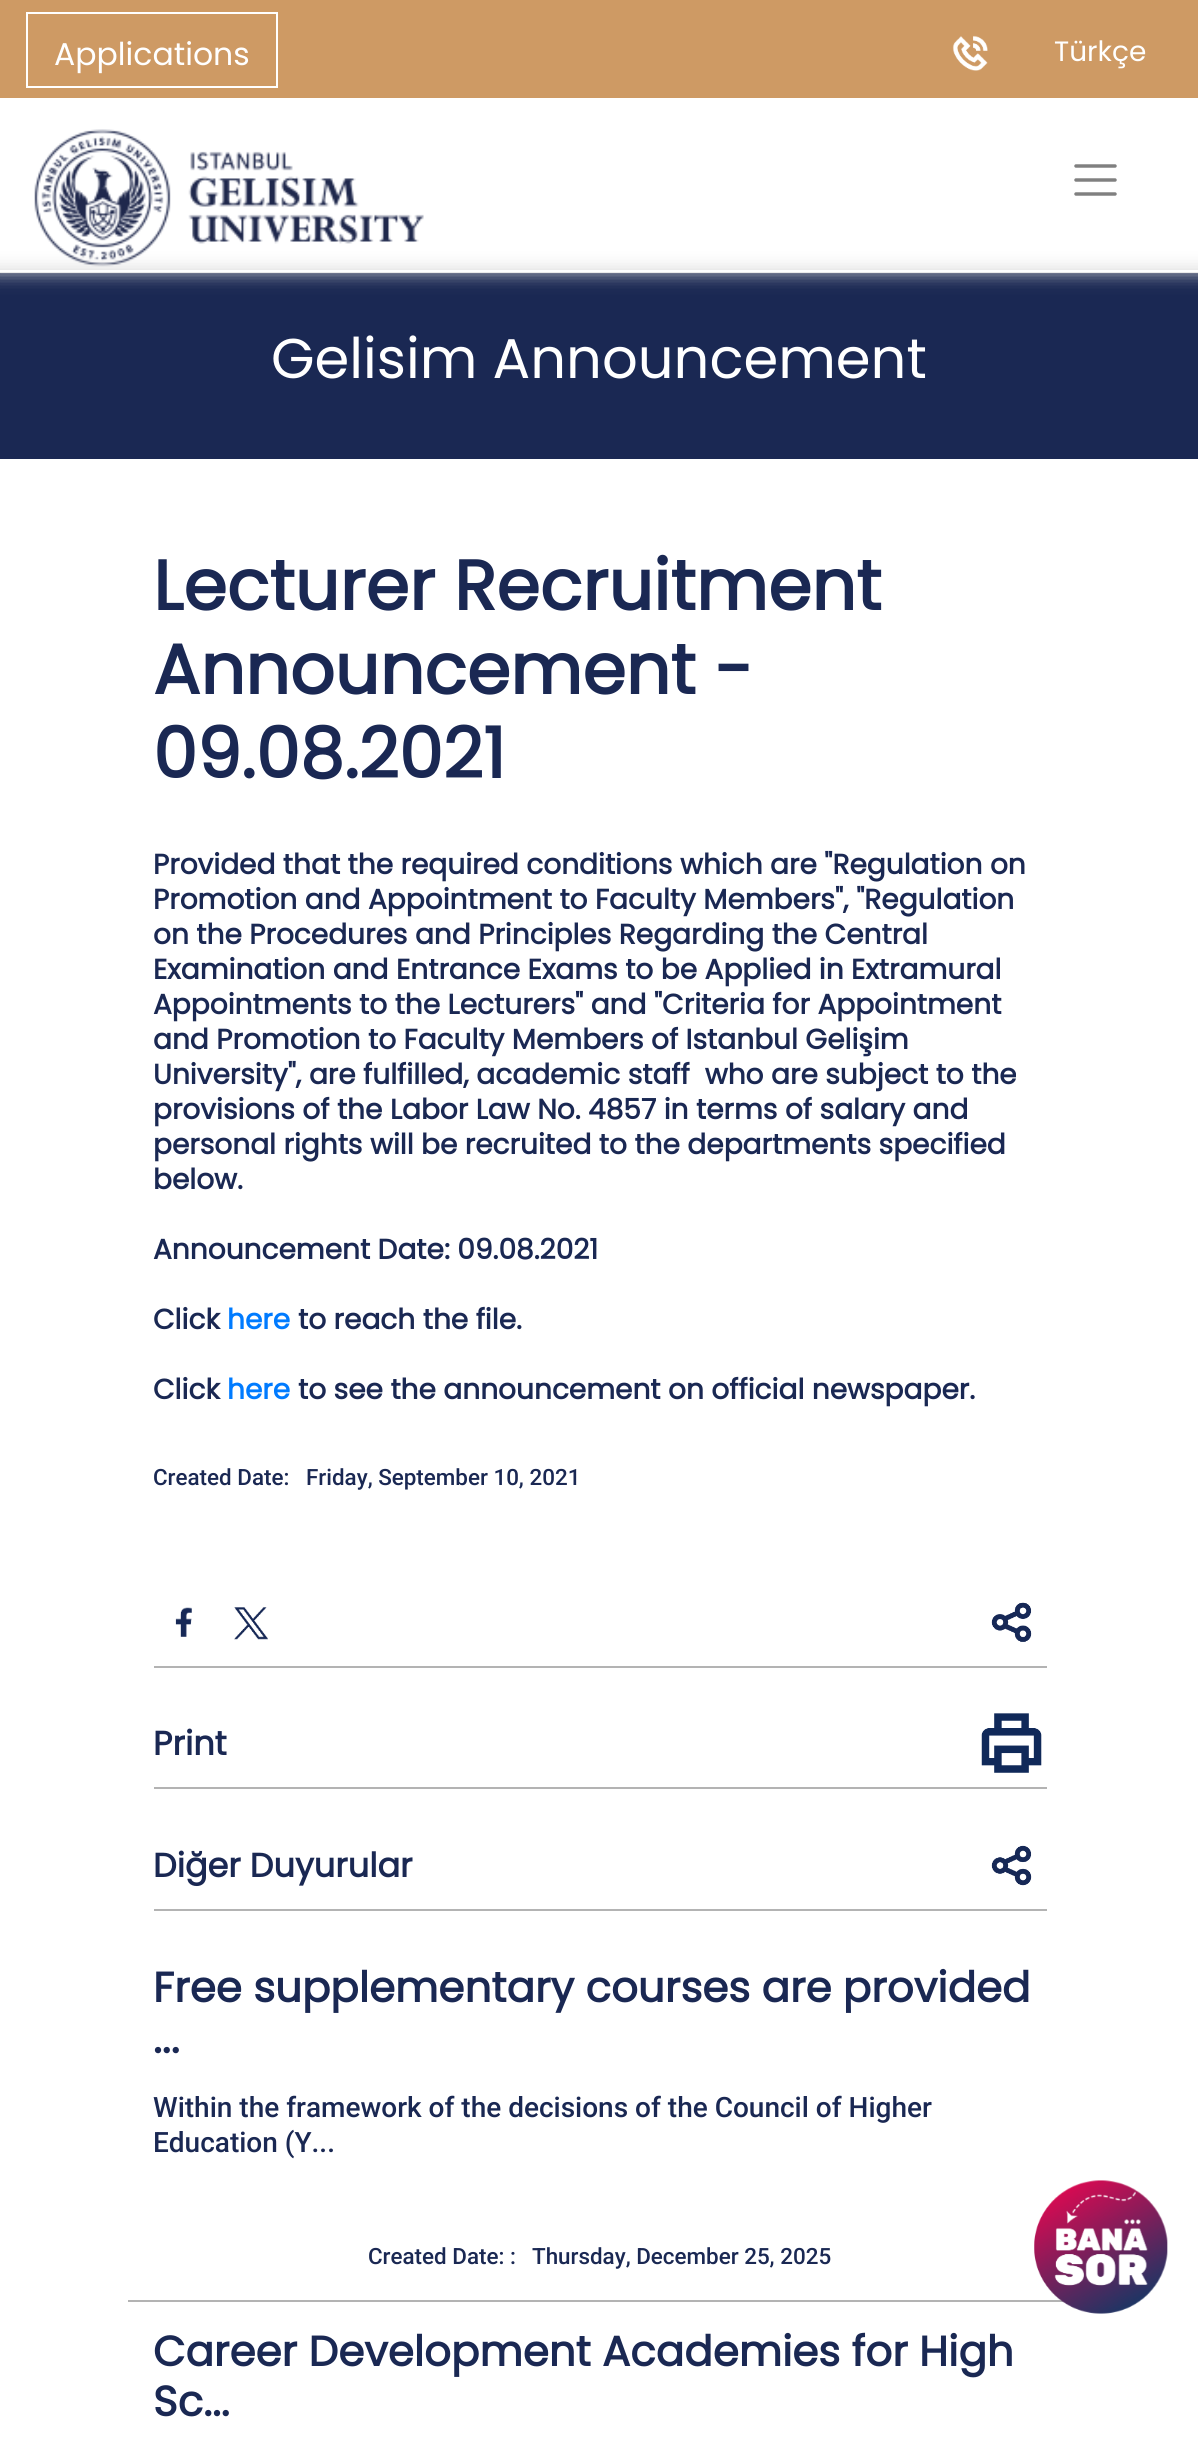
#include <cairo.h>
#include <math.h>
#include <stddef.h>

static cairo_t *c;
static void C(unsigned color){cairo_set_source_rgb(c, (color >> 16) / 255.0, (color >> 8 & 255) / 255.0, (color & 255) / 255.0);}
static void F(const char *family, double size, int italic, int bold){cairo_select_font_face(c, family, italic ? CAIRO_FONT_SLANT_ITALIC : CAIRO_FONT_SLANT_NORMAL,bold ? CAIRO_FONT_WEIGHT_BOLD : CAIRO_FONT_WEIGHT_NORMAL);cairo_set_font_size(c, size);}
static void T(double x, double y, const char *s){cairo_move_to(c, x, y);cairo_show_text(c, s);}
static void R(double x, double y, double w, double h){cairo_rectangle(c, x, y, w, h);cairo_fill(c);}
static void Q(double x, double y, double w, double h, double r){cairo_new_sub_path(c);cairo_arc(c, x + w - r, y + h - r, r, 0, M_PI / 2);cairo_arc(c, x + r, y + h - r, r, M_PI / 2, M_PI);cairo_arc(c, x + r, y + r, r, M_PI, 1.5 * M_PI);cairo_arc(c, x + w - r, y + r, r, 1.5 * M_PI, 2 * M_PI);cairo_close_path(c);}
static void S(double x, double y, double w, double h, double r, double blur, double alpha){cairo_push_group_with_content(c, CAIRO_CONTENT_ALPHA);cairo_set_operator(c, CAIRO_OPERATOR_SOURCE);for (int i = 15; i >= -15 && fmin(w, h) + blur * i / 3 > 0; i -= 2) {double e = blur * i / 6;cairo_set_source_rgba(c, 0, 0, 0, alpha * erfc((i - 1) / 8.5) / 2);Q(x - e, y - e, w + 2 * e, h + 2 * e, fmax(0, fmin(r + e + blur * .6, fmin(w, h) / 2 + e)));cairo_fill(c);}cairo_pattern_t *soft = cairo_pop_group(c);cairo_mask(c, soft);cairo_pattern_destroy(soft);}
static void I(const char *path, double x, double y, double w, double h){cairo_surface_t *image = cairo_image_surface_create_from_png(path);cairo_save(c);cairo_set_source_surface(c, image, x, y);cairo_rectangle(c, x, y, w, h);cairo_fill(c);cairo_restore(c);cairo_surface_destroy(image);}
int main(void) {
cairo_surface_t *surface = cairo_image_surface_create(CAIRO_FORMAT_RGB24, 1198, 2440);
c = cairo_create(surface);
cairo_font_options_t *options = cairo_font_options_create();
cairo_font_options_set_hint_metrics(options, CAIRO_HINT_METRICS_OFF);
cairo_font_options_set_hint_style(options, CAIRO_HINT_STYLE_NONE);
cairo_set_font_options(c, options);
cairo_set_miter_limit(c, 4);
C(0xffffff);
cairo_paint(c);
C(0xce9a64);
R(0,0,1198,98);
cairo_rectangle(c,27,13,250,74);
C(0xffffff);
cairo_stroke(c);
F("Poppins",31.5,0,0);
T(54,65,"Applications");
I("1.png",952,35,36,36);
F("Poppins",28,0,0);
T(1054,61,"Türkçe");
I("2.png",34,129,390,138);
cairo_new_path(c);
cairo_move_to(c,1076,166);
cairo_line_to(c,1115,166);
cairo_move_to(c,1076,180);
cairo_line_to(c,1115,180);
cairo_move_to(c,1076,194);
cairo_line_to(c,1115,194);
C(0x808080);
cairo_set_line_width(c,3.5);
cairo_set_line_cap(c,CAIRO_LINE_CAP_ROUND);
cairo_stroke(c);
C(0x1a2853);
R(0,273,1198,186);
cairo_save(c);
cairo_set_fill_rule(c,CAIRO_FILL_RULE_EVEN_ODD);
cairo_new_path(c);
cairo_move_to(c,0,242);
cairo_line_to(c,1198,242);
cairo_line_to(c,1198,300);
cairo_line_to(c,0,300);
cairo_close_path(c);
cairo_move_to(c,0,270);
cairo_line_to(c,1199,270);
cairo_line_to(c,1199,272);
cairo_line_to(c,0,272);
cairo_close_path(c);
cairo_clip(c);
C(0xd5d5d5);
S(0,270,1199,2,0,9,1);
cairo_restore(c);
F("Poppins",56,0,0);
C(0xffffff);
T(271,378,"Gelisim Announcement");
F("Poppins",70,0,1);
C(0x1a2853);
T(153,610,"Lecturer Recruitment");
T(153,694,"Announcement -");
T(153,778,"09.08.2021");
F("Poppins",28,0,1);
T(153,874,"Provided that the required conditions which are \"Regulation on");
T(153,909,"Promotion and Appointment to Faculty Members\", \"Regulation");
T(153,944,"on the Procedures and Principles Regarding the Central");
T(153,979,"Examination and Entrance Exams to be Applied in Extramural");
T(153,1014,"Appointments to the Lecturers\" and \"Criteria for Appointment");
T(153,1049,"and Promotion to Faculty Members of Istanbul Gelişim");
T(153,1084,"University\", are fulfilled, academic staff  who are subject to the");
T(153,1119,"provisions of the Labor Law No. 4857 in terms of salary and");
T(153,1154,"personal rights will be recruited to the departments specified");
T(153,1189,"below.");
T(153,1259,"Announcement Date: 09.08.2021");
T(153,1329,"Click");
C(0x007bff);
T(227,1329,"here");
C(0x1a2853);
T(298,1329,"to reach the file.");
T(153,1399,"Click");
C(0x007bff);
T(227,1399,"here");
C(0x1a2853);
T(298,1399,"to see the announcement on official newspaper.");
F("Roboto Medium",22.4,0,0);
T(153,1485,"Created Date:");
T(306,1485,"Friday, September 10, 2021");
C(0xb3b3b3);
R(154,1666,893,2);
I("3.png",175,1607,17,30);
I("4.png",234,1607,34,33);
I("5.png",991,1602,41,40);
R(154,1787,893,2);
F("Poppins",33.5,0,1);
C(0x1a2853);
T(153,1755,"Print");
I("6.png",981,1713,61,60);
C(0xb3b3b3);
R(154,1909,893,2);
C(0x1a2853);
T(153,1877,"Diğer Duyurular");
I("7.png",991,1845,41,41);
C(0xb3b3b3);
R(128,2300,945,2);
F("Poppins",42,0,1);
C(0x1a2853);
T(153,2002,"Free supplementary courses are provided");
T(153,2053,"...");
F("Roboto Medium",28,0,0);
T(153,2117,"Within the framework of the decisions of the Council of Higher");
T(153,2152,"Education (Y...");
F("Roboto Medium",22.4,0,0);
T(368,2264,"Created Date: :");
T(532,2264,"Thursday, December 25, 2025");
F("Poppins",42,0,1);
T(153,2366,"Career Development Academies for High");
T(153,2416,"Sc...");
I("8.png",1034,2180,134,134);
cairo_surface_write_to_png(surface, "o.png");
cairo_font_options_destroy(options);
cairo_destroy(c);
cairo_surface_destroy(surface);
return 0;
}
